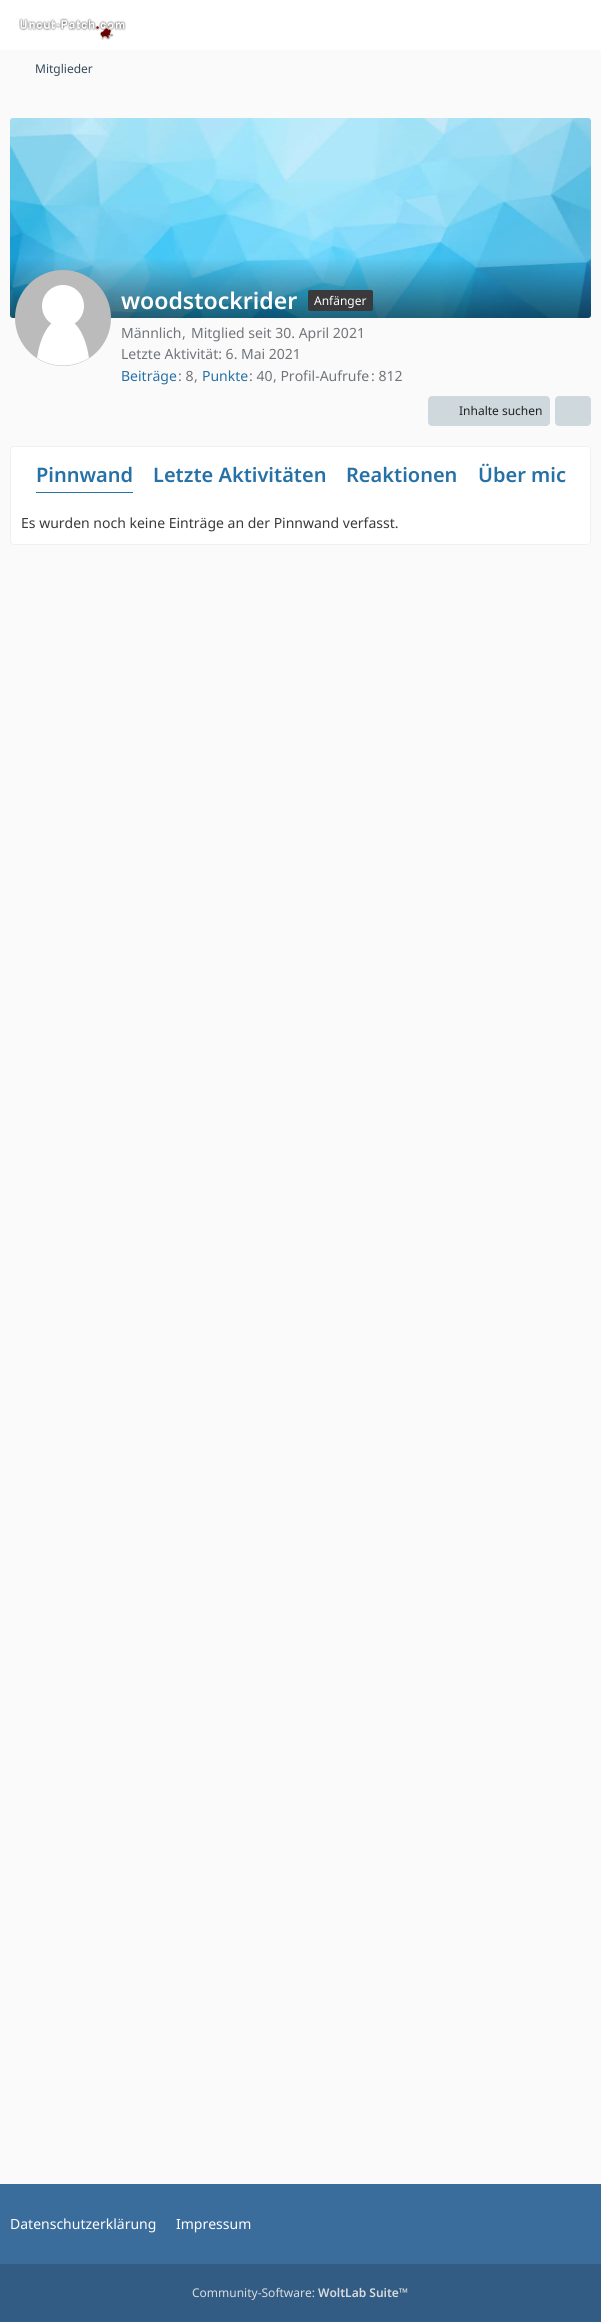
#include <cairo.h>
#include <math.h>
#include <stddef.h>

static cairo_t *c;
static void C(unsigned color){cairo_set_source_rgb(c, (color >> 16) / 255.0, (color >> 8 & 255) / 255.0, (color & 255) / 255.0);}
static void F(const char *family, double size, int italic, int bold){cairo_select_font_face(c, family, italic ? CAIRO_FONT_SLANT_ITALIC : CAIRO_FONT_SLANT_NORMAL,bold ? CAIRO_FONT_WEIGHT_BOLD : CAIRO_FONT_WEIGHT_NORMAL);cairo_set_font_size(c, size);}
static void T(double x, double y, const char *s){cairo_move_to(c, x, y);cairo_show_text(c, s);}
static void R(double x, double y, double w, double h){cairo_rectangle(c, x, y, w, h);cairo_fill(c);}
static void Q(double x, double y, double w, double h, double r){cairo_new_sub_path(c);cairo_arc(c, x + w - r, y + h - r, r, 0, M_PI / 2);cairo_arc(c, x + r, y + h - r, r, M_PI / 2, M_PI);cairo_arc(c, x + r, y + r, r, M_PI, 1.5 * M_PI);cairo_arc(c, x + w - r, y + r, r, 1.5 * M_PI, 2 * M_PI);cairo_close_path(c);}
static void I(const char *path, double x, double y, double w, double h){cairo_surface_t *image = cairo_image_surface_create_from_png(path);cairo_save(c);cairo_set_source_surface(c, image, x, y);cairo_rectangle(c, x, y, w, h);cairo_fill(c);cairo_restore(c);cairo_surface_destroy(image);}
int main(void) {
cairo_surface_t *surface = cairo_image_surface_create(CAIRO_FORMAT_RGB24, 601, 2322);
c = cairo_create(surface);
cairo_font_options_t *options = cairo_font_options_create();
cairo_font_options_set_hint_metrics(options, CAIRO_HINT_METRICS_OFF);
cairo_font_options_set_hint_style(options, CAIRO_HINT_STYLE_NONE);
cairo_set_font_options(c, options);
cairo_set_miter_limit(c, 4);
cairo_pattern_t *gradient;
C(0xfafafa);
cairo_paint(c);
C(0xffffff);
R(0,0,601,50);
I("1.png",19,18,107,22);
F("Noto Sans",12,0,0);
C(0x34495e);
T(35,73,"Mitglieder");
I("2.png",10,118,581,200);
gradient = cairo_pattern_create_linear(301,118,301,318);
cairo_pattern_add_color_stop_rgba(gradient,.7,0,0,0,0);
cairo_pattern_add_color_stop_rgba(gradient,1,0,0,0,.5);
cairo_set_source(c,gradient);
cairo_pattern_destroy(gradient);
cairo_new_path(c);
cairo_move_to(c,10,118);
cairo_line_to(c,591,118);
cairo_line_to(c,591,315);
cairo_curve_to(c,591,316.5,589.5,318,588,318);
cairo_line_to(c,13,318);
cairo_curve_to(c,11.5,318,10,316.5,10,315);
cairo_close_path(c);
cairo_fill(c);
C(0xbbbbbb);
cairo_arc(c,63,318,48,0,2 * M_PI);
cairo_fill(c);
C(0xffffff);
cairo_new_path(c);
cairo_move_to(c,89,358);
cairo_curve_to(c,73,368,53,368,37,358);
cairo_curve_to(c,45,305,81,305,89,358);
cairo_close_path(c);
cairo_fill(c);
cairo_arc(c,63,306,21,0,2 * M_PI);
cairo_fill(c);
F("Noto Sans SemiBold",23,0,0);
T(121,309,"woodstockrider");
C(0x3a3a3d);
Q(308,290,65,21,2);
cairo_fill(c);
F("Noto Sans",12,0,0);
C(0xffffff);
T(314,305,"Anfänger");
F("Noto Sans",14,0,0);
C(0x71757a);
T(121,338,"Männlich");
T(182,338,",");
T(191,338,"Mitglied seit 30. April 2021");
T(121,359,"Letzte Aktivität: 6. Mai 2021");
C(0x2671a6);
T(121,381,"Beiträge");
C(0x71757a);
T(178,381,": 8");
T(194,381,",");
C(0x2671a6);
T(202,381,"Punkte");
C(0x71757a);
T(249,381,": 40");
T(273,381,", Profil-Aufrufe");
T(371,381,": 812");
C(0xcfd8dc);
Q(428,396,122,30,4);
cairo_fill(c);
F("Noto Sans",12,0,0);
C(0x212121);
T(459,415,"Inhalte suchen");
C(0xcfd8dc);
Q(555,396,36,30,4);
cairo_fill(c);
C(0xffffff);
Q(10.5,446.5,580,98,3.5);
cairo_fill_preserve(c);
C(0xecf1f7);
cairo_set_line_width(c,1);
cairo_stroke(c);
F("Noto Sans SemiBold",20,0,0);
C(0x2671a6);
T(36,482,"Pinnwand");
R(36,492,97,1);
T(153,482,"Letzte Aktivitäten");
T(346,482,"Reaktionen");
T(478,482,"Über mic");
F("Noto Sans",14,0,0);
C(0x3a3a3d);
T(21,528,"Es wurden noch keine Einträge an der Pinnwand verfasst.");
C(0x3a6d9c);
R(0,2184,601,80);
C(0xffffff);
T(10,2229,"Datenschutzerklärung");
T(176,2229,"Impressum");
C(0x325c84);
R(0,2264,601,58);
F("Noto Sans",12,0,0);
C(0xd9dcde);
T(192,2297,"Community-Software:");
F("Noto Sans SemiBold",12,0,0);
T(318,2297,"WoltLab Suite™");
cairo_surface_write_to_png(surface, "o.png");
cairo_font_options_destroy(options);
cairo_destroy(c);
cairo_surface_destroy(surface);
return 0;
}
